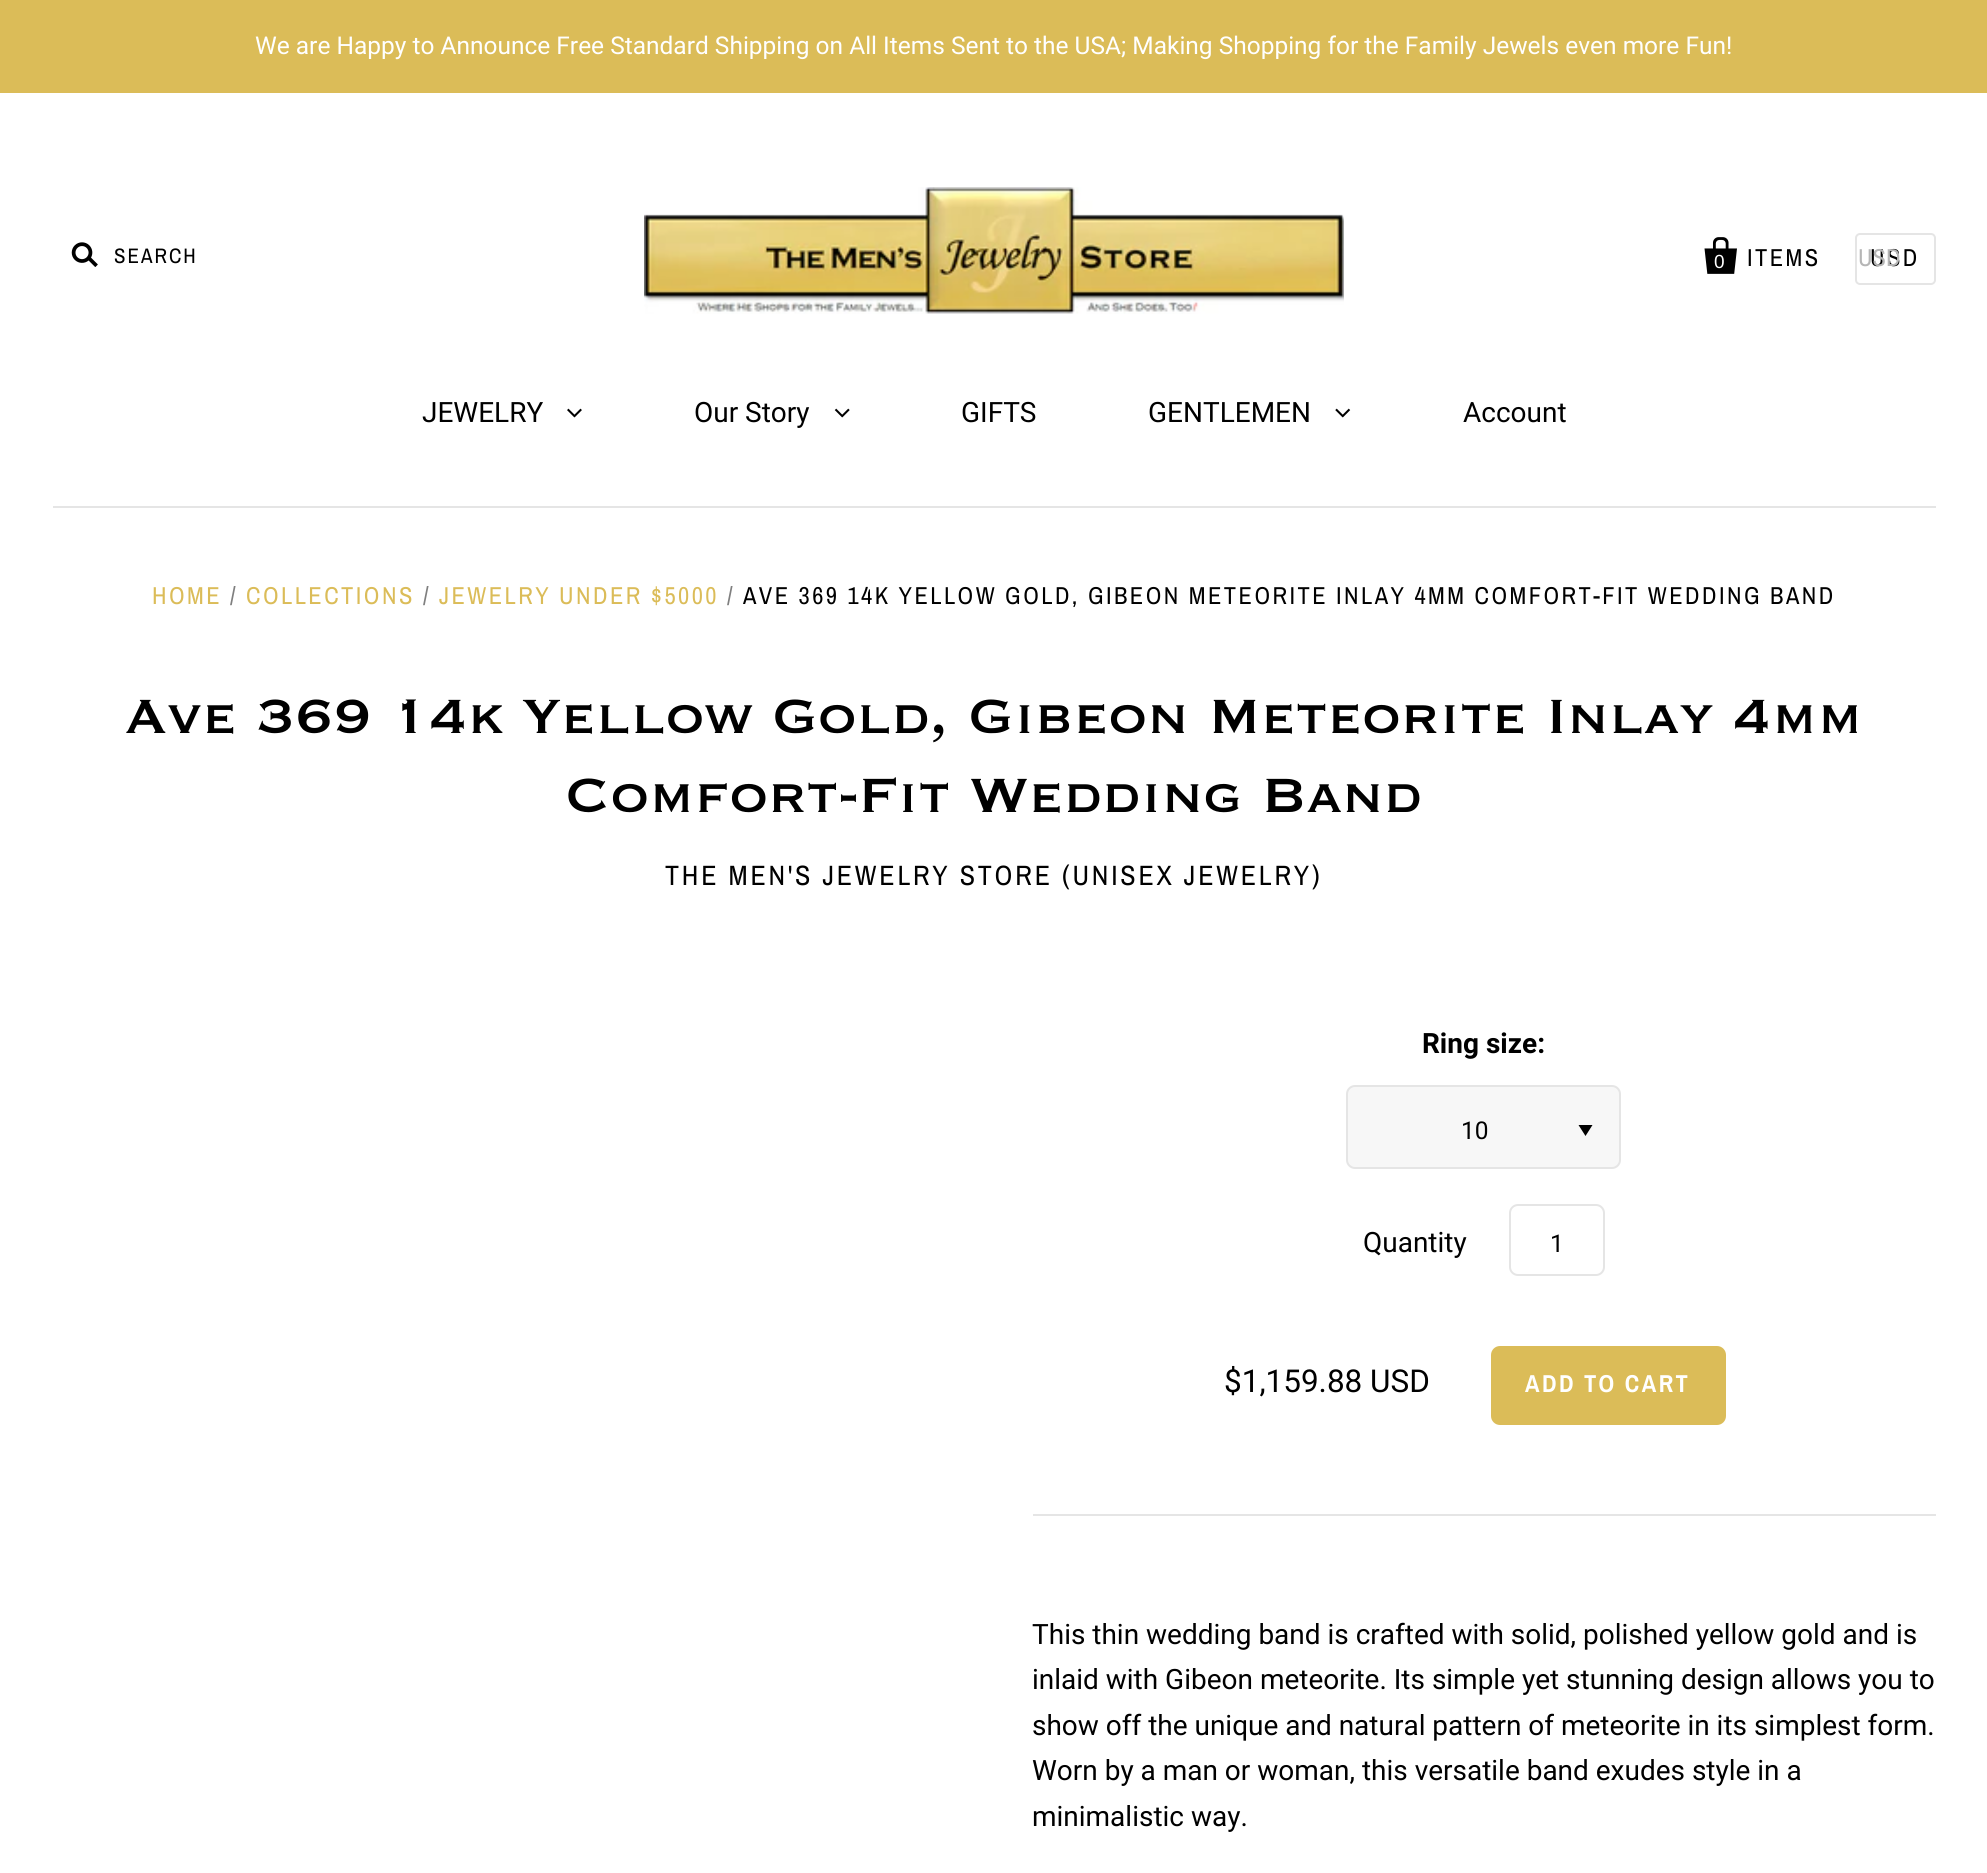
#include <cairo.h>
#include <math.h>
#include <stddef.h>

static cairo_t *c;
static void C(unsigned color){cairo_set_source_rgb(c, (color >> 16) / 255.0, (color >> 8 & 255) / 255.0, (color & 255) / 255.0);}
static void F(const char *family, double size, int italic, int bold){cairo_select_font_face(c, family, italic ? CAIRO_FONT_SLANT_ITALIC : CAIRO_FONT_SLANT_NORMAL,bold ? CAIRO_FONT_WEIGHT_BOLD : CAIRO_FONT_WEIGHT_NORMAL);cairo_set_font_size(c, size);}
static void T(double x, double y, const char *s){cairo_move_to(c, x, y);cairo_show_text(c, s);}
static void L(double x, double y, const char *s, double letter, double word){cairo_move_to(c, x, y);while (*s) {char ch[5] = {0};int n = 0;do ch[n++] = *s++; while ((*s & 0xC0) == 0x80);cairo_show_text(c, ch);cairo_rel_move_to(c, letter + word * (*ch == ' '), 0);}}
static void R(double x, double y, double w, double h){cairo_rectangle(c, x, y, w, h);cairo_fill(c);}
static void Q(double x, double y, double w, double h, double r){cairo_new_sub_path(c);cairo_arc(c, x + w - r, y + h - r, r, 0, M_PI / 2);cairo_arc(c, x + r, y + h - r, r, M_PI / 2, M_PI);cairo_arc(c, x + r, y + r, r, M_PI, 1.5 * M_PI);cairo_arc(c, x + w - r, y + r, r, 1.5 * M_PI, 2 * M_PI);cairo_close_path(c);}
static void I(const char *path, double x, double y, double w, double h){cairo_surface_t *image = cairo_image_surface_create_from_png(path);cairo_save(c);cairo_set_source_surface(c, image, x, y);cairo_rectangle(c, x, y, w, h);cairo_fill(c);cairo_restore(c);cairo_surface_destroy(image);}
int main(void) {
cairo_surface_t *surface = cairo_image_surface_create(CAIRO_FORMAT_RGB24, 1987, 1873);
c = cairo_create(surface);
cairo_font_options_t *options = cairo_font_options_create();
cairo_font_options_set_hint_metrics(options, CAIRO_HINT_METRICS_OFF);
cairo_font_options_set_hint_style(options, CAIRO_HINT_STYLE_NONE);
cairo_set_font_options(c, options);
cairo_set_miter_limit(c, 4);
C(0xffffff);
cairo_paint(c);
C(0xdbbc58);
R(0,0,1987,93);
F("Roboto",24.5,0,0);
C(0xffffff);
T(255,54,"We are Happy to Announce Free Standard Shipping on All Items Sent to the USA; Making Shopping for the Family Jewels even more Fun!");
C(0xe5e5e5);
R(53,506,1883,2);
I("1.png",71,242,27,25);
F("Archivo Narrow",21,0,0);
C(0x000000);
L(114,263,"SEARCH",2,0);
I("2.png",644,187,700,127);
I("3.png",1704,237,33,37);
F("Archivo Narrow",24.5,0,0);
L(1747,266,"ITEMS",2.45,0);
F("Liberation Sans",19,0,0);
C(0xffffff);
L(1714,268,"0",2.45,0);
Q(1856,234,79,50,4);
C(0xe5e5e5);
cairo_stroke(c);
F("Archivo Narrow",24.5,0,0);
C(0x000000);
L(1870,266,"USD",2.45,0);
C(0xb6b6b6);
T(1858,266,"USD");
F("Roboto",28,0,0);
C(0x000000);
T(422,422,"JEWELRY");
I("4.png",567,408,15,10);
T(694,422,"Our Story");
I("5.png",834,408,16,10);
T(961,422,"GIFTS");
T(1148,422,"GENTLEMEN");
I("6.png",1335,408,16,10);
T(1463,422,"Account");
F("Archivo Narrow",24.5,0,0);
C(0xdbbc58);
L(152,604,"HOME",2.45,0);
C(0x7f7f7f);
L(230,604,"/",2.45,0);
C(0xdbbc58);
L(246,604,"COLLECTIONS",2.45,0);
C(0x7f7f7f);
L(423,604,"/",2.45,0);
C(0xdbbc58);
L(439,604,"JEWELRY UNDER $5000",2.45,0);
C(0x7f7f7f);
L(727,604,"/",2.45,0);
C(0x000000);
L(743,604,"AVE 369 14K YELLOW GOLD, GIBEON METEORITE INLAY 4MM COMFORT-FIT WEDDING BAND",2.45,0);
F("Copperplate",63,0,0);
T(125,733,"Ave 369 14k Yellow Gold, Gibeon Meteorite Inlay 4mm");
T(565,812,"Comfort-Fit Wedding Band");
F("Archivo Narrow",28,0,0);
L(665,885,"THE MEN'S JEWELRY STORE (UNISEX JEWELRY)",2.8,0);
F("Roboto",28,0,1);
T(1422,1053,"Ring size:");
C(0xf7f7f7);
Q(1347,1086,273,82,8);
cairo_fill_preserve(c);
C(0xe5e5e5);
cairo_stroke(c);
F("Roboto",24.5,0,0);
C(0x000000);
T(1461,1139,"10");
cairo_new_path(c);
cairo_move_to(c,1578.5,1125);
cairo_line_to(c,1592.5,1125);
cairo_line_to(c,1585.5,1136);
cairo_close_path(c);
cairo_fill(c);
F("Roboto",28,0,0);
T(1363,1252,"Quantity");
Q(1510,1205,94,70,8);
C(0xe5e5e5);
cairo_stroke(c);
F("Roboto",24.5,0,0);
C(0x000000);
T(1550,1252,"1");
F("Roboto",31.5,0,0);
T(1224,1392,"$1,159.88 USD");
C(0xdbbc58);
Q(1491,1346,235,79,9);
cairo_fill(c);
F("Archivo Narrow",24.5,0,1);
C(0xffffff);
L(1525,1392,"ADD TO CART",2.45,0);
C(0xe5e5e5);
R(1033,1514,903,2);
F("Roboto",28,0,0);
C(0x000000);
T(1032,1644,"This thin wedding band is crafted with solid, polished yellow gold and is");
T(1032,1689,"inlaid with Gibeon meteorite. Its simple yet stunning design allows you to");
T(1032,1735,"show off the unique and natural pattern of meteorite in its simplest form.");
T(1032,1780,"Worn by a man or woman, this versatile band exudes style in a");
T(1032,1826,"minimalistic way.");
cairo_surface_write_to_png(surface, "o.png");
cairo_font_options_destroy(options);
cairo_destroy(c);
cairo_surface_destroy(surface);
return 0;
}
